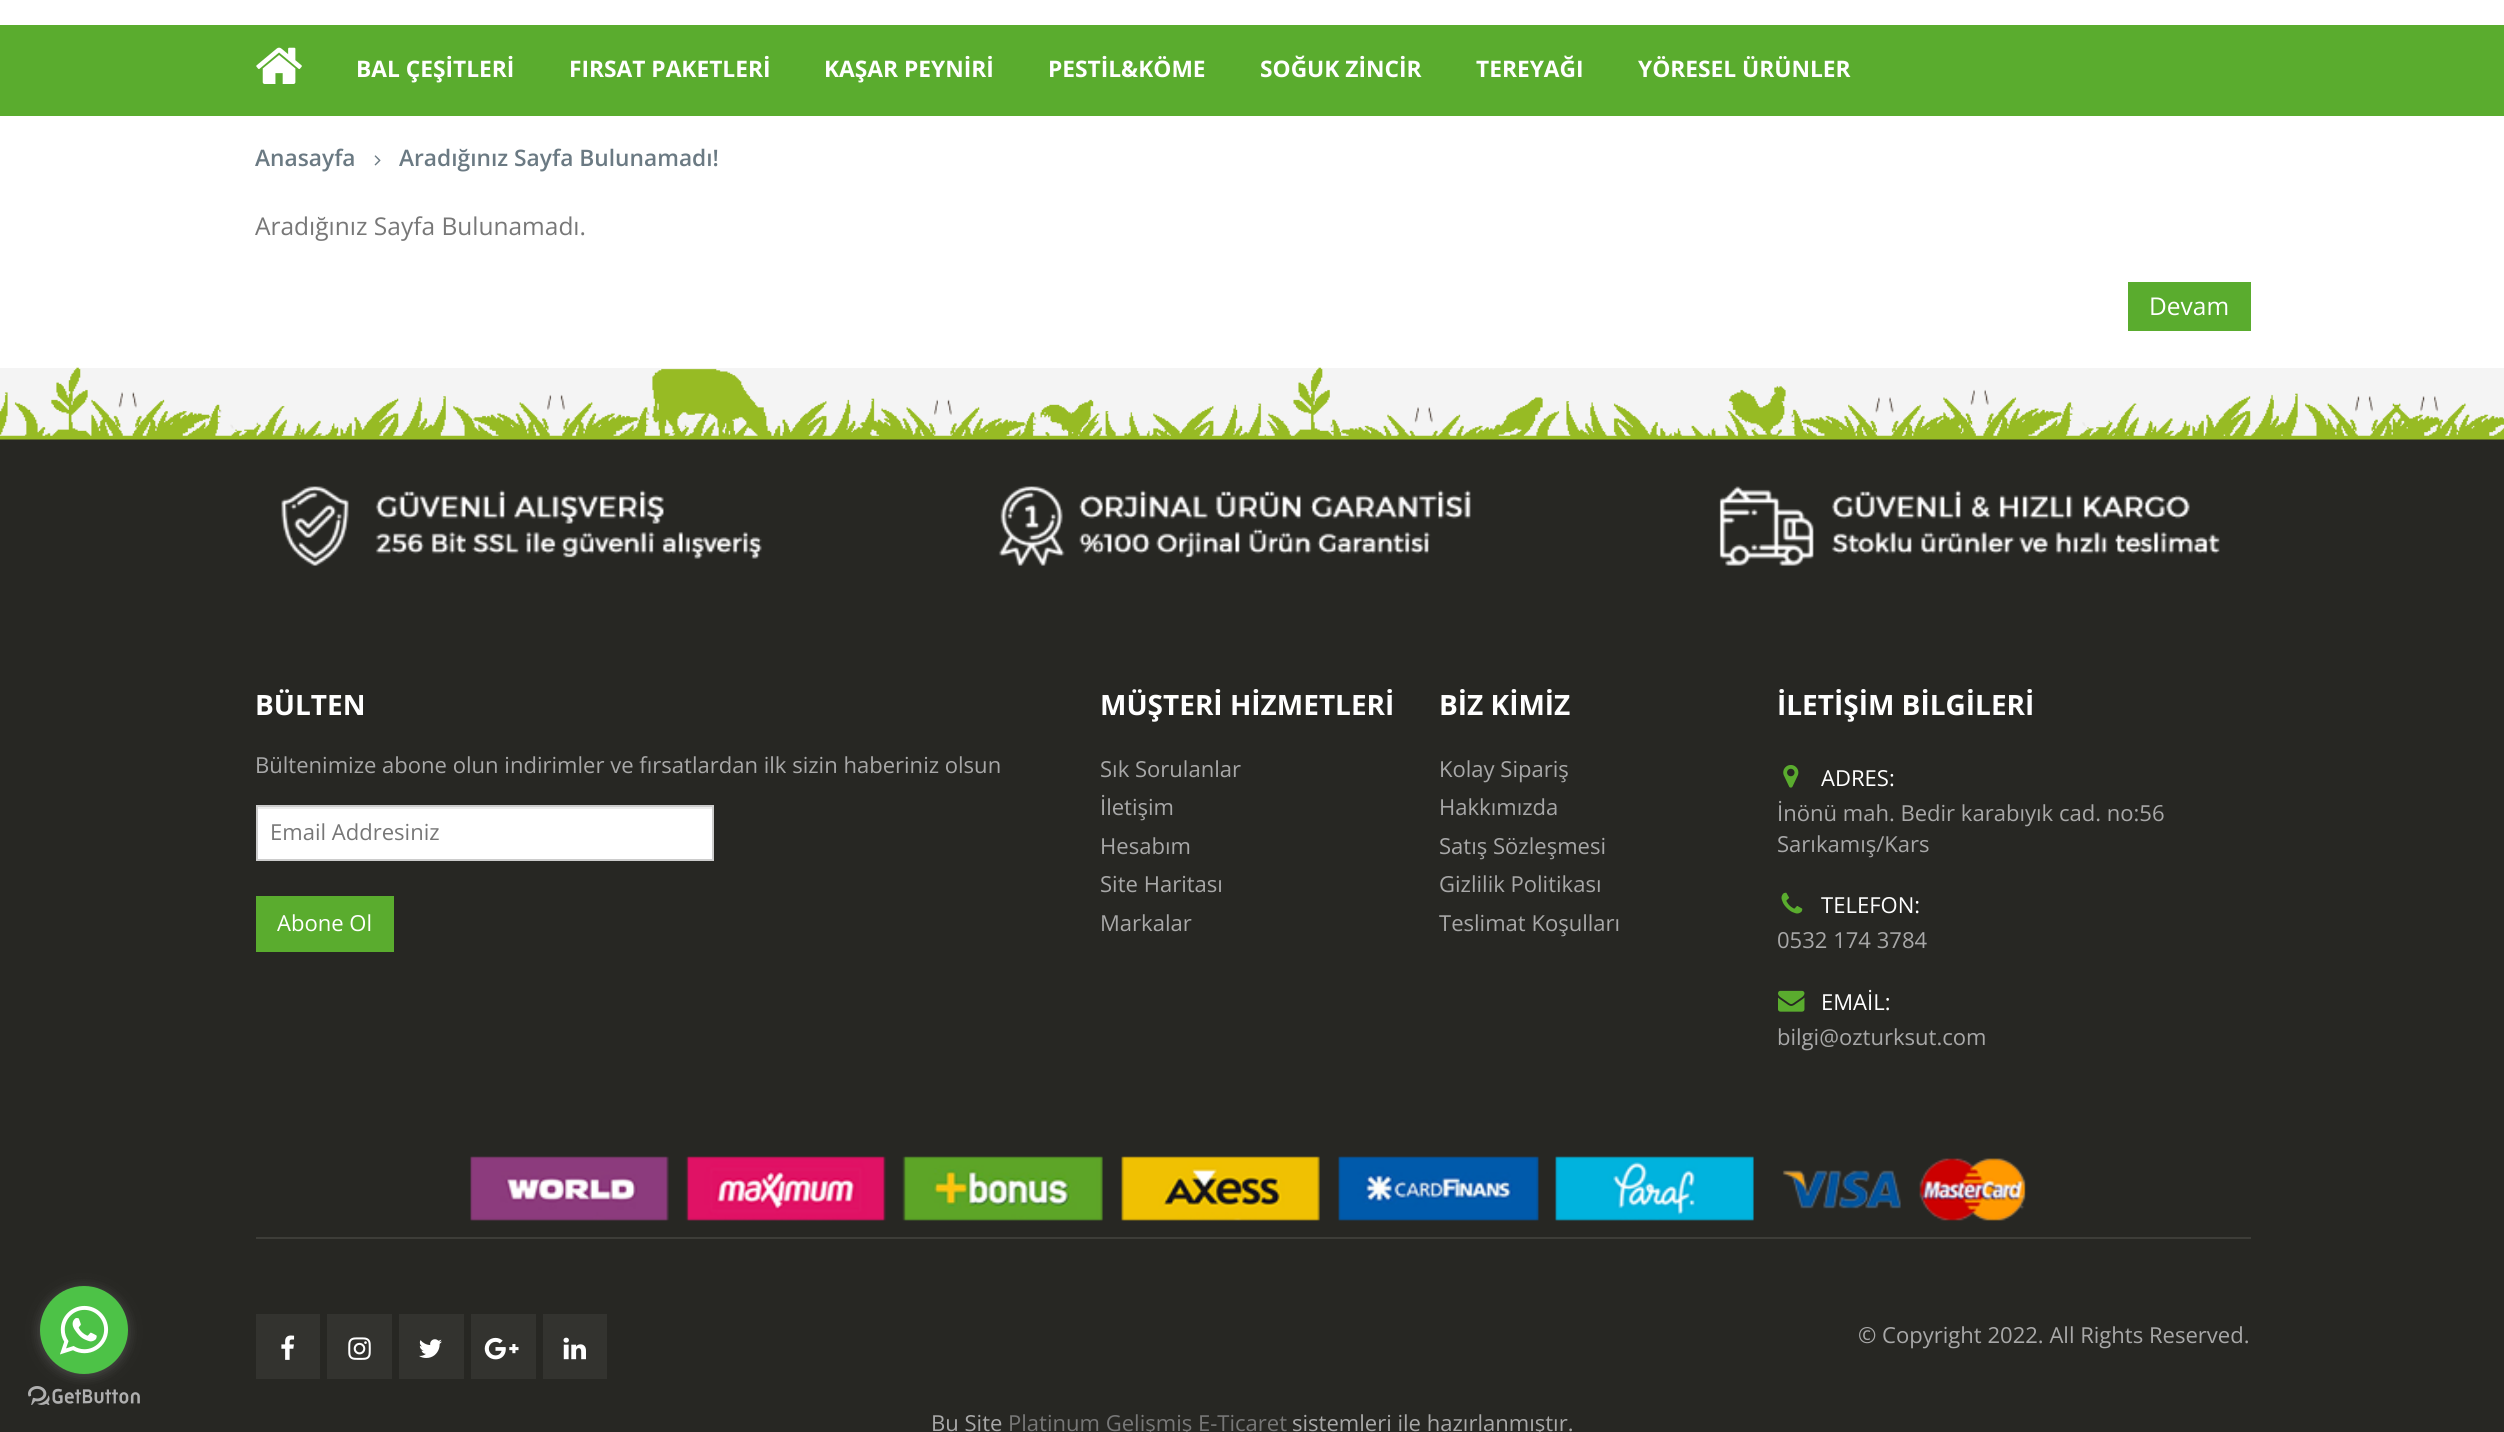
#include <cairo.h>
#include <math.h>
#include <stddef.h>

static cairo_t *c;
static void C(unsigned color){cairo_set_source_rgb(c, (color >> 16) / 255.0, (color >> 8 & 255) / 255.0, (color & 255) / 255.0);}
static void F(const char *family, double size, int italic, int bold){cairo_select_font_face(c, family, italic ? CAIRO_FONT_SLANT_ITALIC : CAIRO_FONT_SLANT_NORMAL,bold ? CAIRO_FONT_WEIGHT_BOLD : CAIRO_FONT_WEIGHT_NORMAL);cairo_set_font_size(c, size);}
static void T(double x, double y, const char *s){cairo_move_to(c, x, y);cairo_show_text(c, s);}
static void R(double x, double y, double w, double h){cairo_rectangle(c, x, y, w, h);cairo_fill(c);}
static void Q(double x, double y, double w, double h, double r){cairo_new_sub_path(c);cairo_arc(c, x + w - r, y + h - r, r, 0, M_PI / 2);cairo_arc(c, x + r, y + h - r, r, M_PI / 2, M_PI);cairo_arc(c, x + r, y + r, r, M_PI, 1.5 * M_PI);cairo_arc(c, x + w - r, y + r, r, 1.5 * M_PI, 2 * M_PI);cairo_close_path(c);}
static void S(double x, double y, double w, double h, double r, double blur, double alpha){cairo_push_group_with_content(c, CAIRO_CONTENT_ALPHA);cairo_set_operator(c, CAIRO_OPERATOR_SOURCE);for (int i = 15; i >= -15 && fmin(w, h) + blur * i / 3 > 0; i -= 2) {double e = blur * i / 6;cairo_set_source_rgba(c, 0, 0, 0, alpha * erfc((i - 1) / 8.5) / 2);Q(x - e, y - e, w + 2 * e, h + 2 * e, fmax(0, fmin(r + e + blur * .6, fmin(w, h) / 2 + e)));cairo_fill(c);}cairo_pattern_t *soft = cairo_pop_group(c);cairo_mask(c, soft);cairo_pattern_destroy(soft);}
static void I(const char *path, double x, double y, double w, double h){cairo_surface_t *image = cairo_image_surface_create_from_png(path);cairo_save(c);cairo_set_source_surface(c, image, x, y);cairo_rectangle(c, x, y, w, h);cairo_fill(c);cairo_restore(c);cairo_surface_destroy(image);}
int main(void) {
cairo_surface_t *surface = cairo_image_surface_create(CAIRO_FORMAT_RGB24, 2504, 1432);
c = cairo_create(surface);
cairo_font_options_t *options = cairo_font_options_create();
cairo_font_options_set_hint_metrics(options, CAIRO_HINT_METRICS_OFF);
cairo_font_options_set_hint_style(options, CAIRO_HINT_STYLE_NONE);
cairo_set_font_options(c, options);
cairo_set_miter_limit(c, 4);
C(0xffffff);
cairo_paint(c);
C(0x272723);
R(0,439,2504,993);
I("2.png",28,1386,112,19);
C(0x888888);
S(40,1288,88,88,44,6,.4);
C(0x4dc247);
cairo_arc(c,84,1330,44,0,2 * M_PI);
cairo_fill(c);
I("1.png",60,1305,49,50);
C(0x5aac2e);
R(0,25,2504,91);
I("3.png",256,47,46,37);
F("Open Sans",22.75,0,1);
C(0xffffff);
T(356,77,"BAL ÇEŞİTLERİ");
T(569,77,"FIRSAT PAKETLERİ");
T(824,77,"KAŞAR PEYNİRİ");
T(1048,77,"PESTİL&KÖME");
T(1260,77,"SOĞUK ZİNCİR");
T(1476,77,"TEREYAĞI");
T(1638,77,"YÖRESEL ÜRÜNLER");
F("Open Sans SemiBold",22.75,0,0);
C(0x6b7a83);
T(255,166,"Anasayfa");
I("4.png",374,155,7,11);
T(399,166,"Aradığınız Sayfa Bulunamadı!");
F("Open Sans",24.5,0,0);
C(0x777777);
T(255,235,"Aradığınız Sayfa Bulunamadı.");
C(0x5aac2e);
R(2128,282,123,49);
C(0xffffff);
T(2149,315,"Devam");
C(0xf4f4f4);
R(0,368,2504,68);
I("5.png",0,367,2504,73);
I("6.png",281,486,1939,80);
F("Open Sans",28,0,1);
C(0xffffff);
T(255,715,"BÜLTEN");
F("Open Sans",22.05,0,0);
C(0xa8a8a8);
T(255,773,"Bültenimize abone olun indirimler ve fırsatlardan ilk sizin haberiniz olsun");
C(0xffffff);
R(258,809,454,50);
C(0xececec);
R(257,807,455,2);
cairo_rectangle(c,257,806,456,54);
C(0xcccccc);
cairo_stroke(c);
C(0x777777);
T(270,840,"Email Addresiniz");
C(0x5aac2e);
R(256,896,138,56);
C(0xffffff);
T(277,931,"Abone Ol");
F("Open Sans",28,0,1);
T(1100,715,"MÜŞTERİ HİZMETLERİ");
F("Open Sans",22.05,0,0);
C(0xa8a8a8);
T(1100,777,"Sık Sorulanlar");
T(1100,815,"İletişim");
T(1100,854,"Hesabım");
T(1100,892,"Site Haritası");
T(1100,931,"Markalar");
F("Open Sans",28,0,1);
C(0xffffff);
T(1439,715,"BİZ KİMİZ");
F("Open Sans",22.05,0,0);
C(0xa8a8a8);
T(1439,777,"Kolay Sipariş");
T(1439,815,"Hakkımızda");
T(1439,854,"Satış Sözleşmesi");
T(1439,892,"Gizlilik Politikası");
T(1439,931,"Teslimat Koşulları");
F("Open Sans",28,0,1);
C(0xffffff);
T(1777,715,"İLETİŞİM BİLGİLERİ");
I("7.png",1783,765,16,23);
F("Open Sans",22.05,0,0);
T(1821,786,"ADRES:");
C(0xa8a8a8);
T(1777,821,"İnönü mah. Bedir karabıyık cad. no:56");
T(1777,852,"Sarıkamış/Kars");
I("8.png",1781,892,22,22);
C(0xffffff);
T(1821,913,"TELEFON:");
C(0xa8a8a8);
T(1777,948,"0532 174 3784");
I("9.png",1778,990,27,22);
C(0xffffff);
T(1821,1010,"EMAİL:");
C(0xa8a8a8);
T(1777,1045,"bilgi@ozturksut.com");
I("10.png",470,1156,1556,65);
C(0x3d3d38);
R(256,1237,1995,2);
C(0x33332f);
R(256,1314,64,65);
I("11.png",281,1335,14,25);
R(327,1314,65,65);
I("12.png",348,1337,23,23);
R(399,1314,65,65);
I("13.png",419,1339,23,19);
R(471,1314,65,65);
I("14.png",484,1337,35,23);
R(543,1314,64,65);
I("15.png",563,1337,23,23);
C(0xa8a8a8);
T(1858,1343,"© Copyright 2022. All Rights Reserved.");
T(931,1431,"Bu Site");
C(0x777777);
T(1008,1431,"Platinum Gelişmiş E-Ticaret");
C(0xa8a8a8);
T(1292,1431,"sistemleri ile hazırlanmıştır.");
cairo_surface_write_to_png(surface, "o.png");
cairo_font_options_destroy(options);
cairo_destroy(c);
cairo_surface_destroy(surface);
return 0;
}
